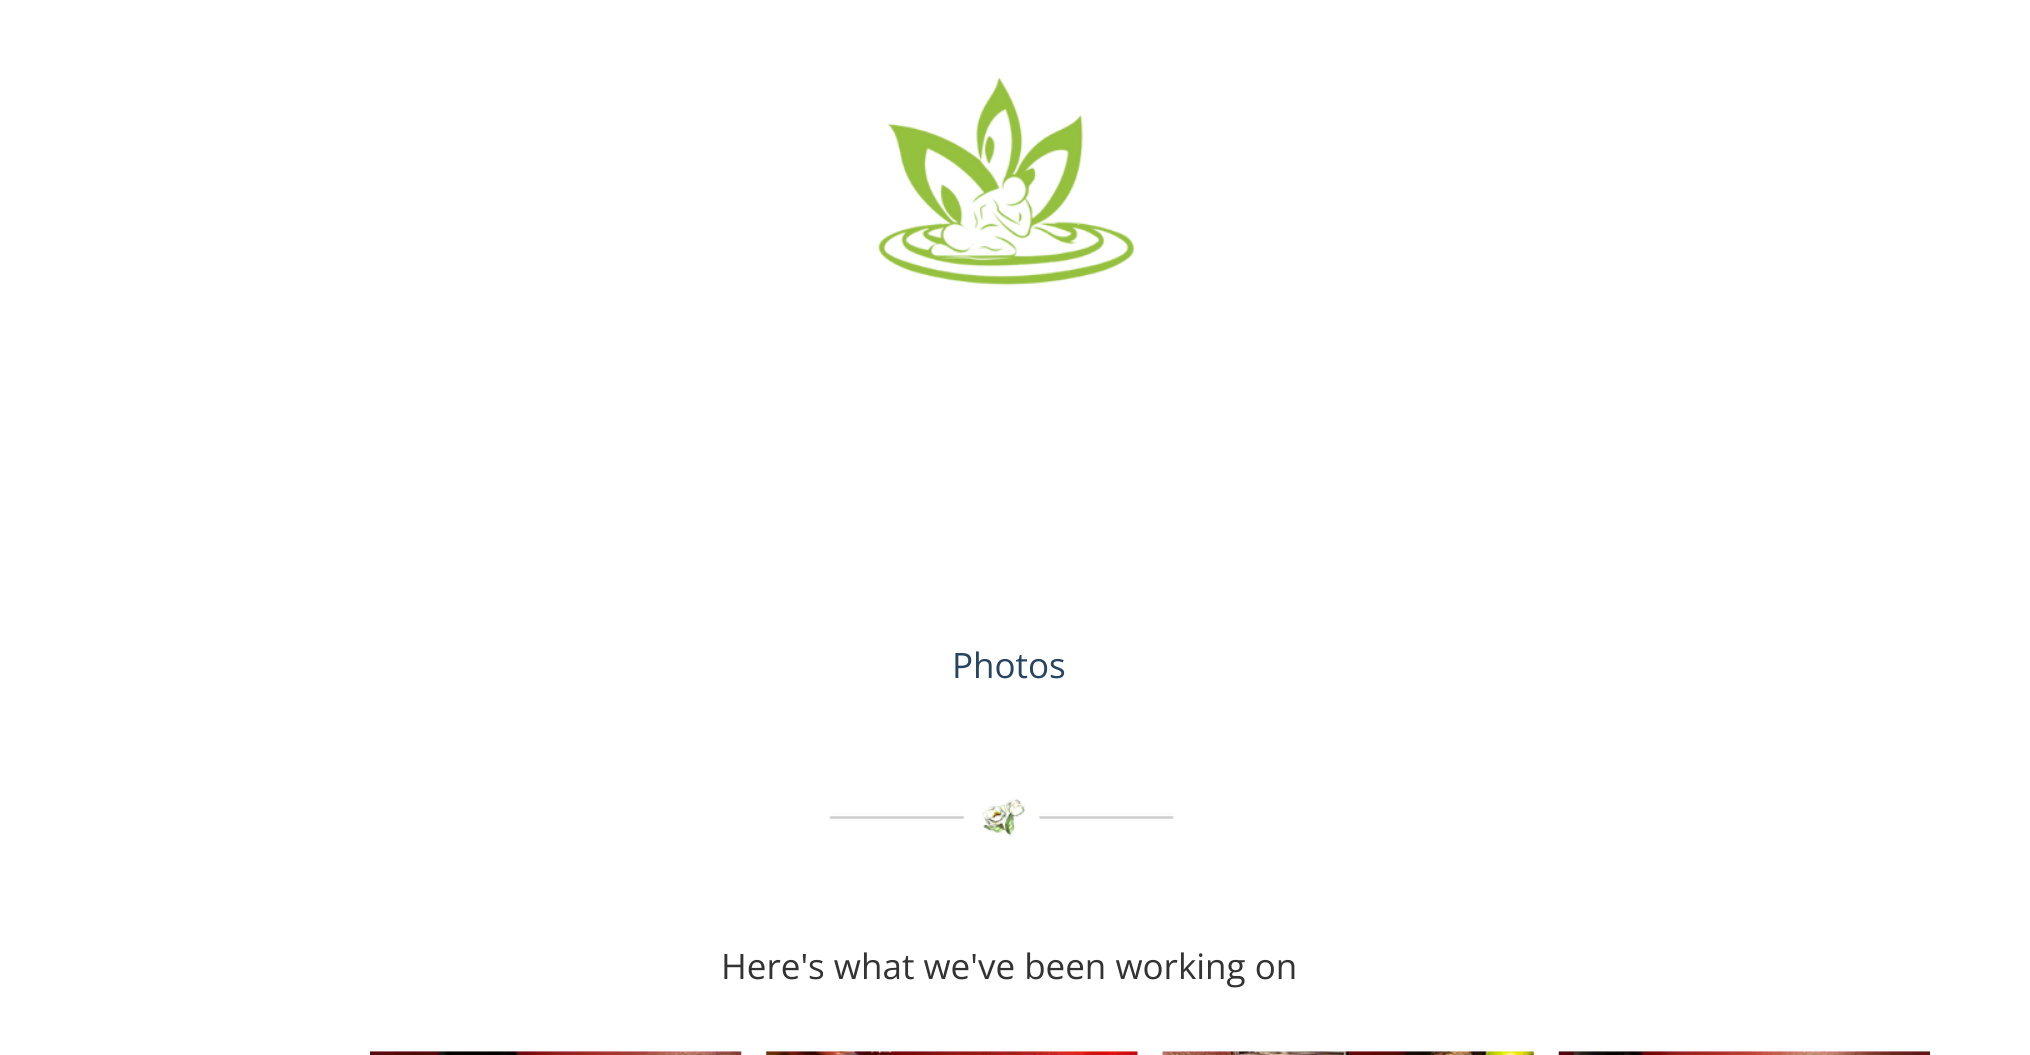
#include <cairo.h>
#include <math.h>
#include <stddef.h>

static cairo_t *c;
static void C(unsigned color){cairo_set_source_rgb(c, (color >> 16) / 255.0, (color >> 8 & 255) / 255.0, (color & 255) / 255.0);}
static void F(const char *family, double size, int italic, int bold){cairo_select_font_face(c, family, italic ? CAIRO_FONT_SLANT_ITALIC : CAIRO_FONT_SLANT_NORMAL,bold ? CAIRO_FONT_WEIGHT_BOLD : CAIRO_FONT_WEIGHT_NORMAL);cairo_set_font_size(c, size);}
static void T(double x, double y, const char *s){cairo_move_to(c, x, y);cairo_show_text(c, s);}
static void I(const char *path, double x, double y, double w, double h){cairo_surface_t *image = cairo_image_surface_create_from_png(path);cairo_save(c);cairo_set_source_surface(c, image, x, y);cairo_rectangle(c, x, y, w, h);cairo_fill(c);cairo_restore(c);cairo_surface_destroy(image);}
int main(void) {
cairo_surface_t *surface = cairo_image_surface_create(CAIRO_FORMAT_RGB24, 2030, 1055);
c = cairo_create(surface);
cairo_font_options_t *options = cairo_font_options_create();
cairo_font_options_set_hint_metrics(options, CAIRO_HINT_METRICS_OFF);
cairo_font_options_set_hint_style(options, CAIRO_HINT_STYLE_NONE);
cairo_set_font_options(c, options);
cairo_set_miter_limit(c, 4);
C(0xffffff);
cairo_paint(c);
I("1.png",878,77,257,209);
F("Open Sans",35,0,0);
C(0x274562);
T(952,678,"Photos");
I("2.png",829,798,345,39);
I("3.png",829,798,345,39);
C(0x333333);
T(721,979,"Here's what we've been working on");
I("4.png",370,1051,372,4);
I("5.png",766,1051,372,4);
I("6.png",1162,1051,372,4);
I("7.png",1558,1051,372,4);
cairo_surface_write_to_png(surface, "o.png");
cairo_font_options_destroy(options);
cairo_destroy(c);
cairo_surface_destroy(surface);
return 0;
}
